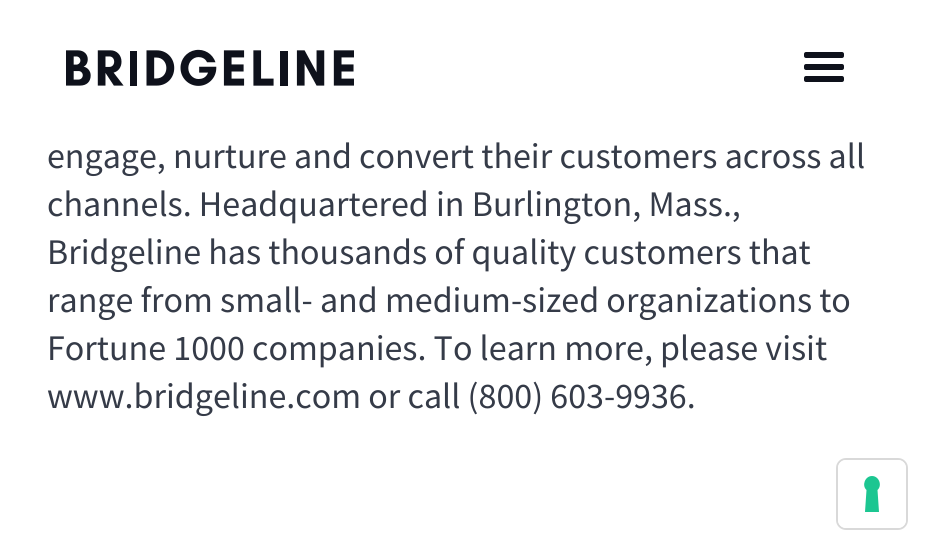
#include <cairo.h>
#include <math.h>
#include <stddef.h>

static cairo_t *c;
static void C(unsigned color){cairo_set_source_rgb(c, (color >> 16) / 255.0, (color >> 8 & 255) / 255.0, (color & 255) / 255.0);}
static void F(const char *family, double size, int italic, int bold){cairo_select_font_face(c, family, italic ? CAIRO_FONT_SLANT_ITALIC : CAIRO_FONT_SLANT_NORMAL,bold ? CAIRO_FONT_WEIGHT_BOLD : CAIRO_FONT_WEIGHT_NORMAL);cairo_set_font_size(c, size);}
static void T(double x, double y, const char *s){cairo_move_to(c, x, y);cairo_show_text(c, s);}
static void Q(double x, double y, double w, double h, double r){cairo_new_sub_path(c);cairo_arc(c, x + w - r, y + h - r, r, 0, M_PI / 2);cairo_arc(c, x + r, y + h - r, r, M_PI / 2, M_PI);cairo_arc(c, x + r, y + r, r, M_PI, 1.5 * M_PI);cairo_arc(c, x + w - r, y + r, r, 1.5 * M_PI, 2 * M_PI);cairo_close_path(c);}
static void I(const char *path, double x, double y, double w, double h){cairo_surface_t *image = cairo_image_surface_create_from_png(path);cairo_save(c);cairo_set_source_surface(c, image, x, y);cairo_rectangle(c, x, y, w, h);cairo_fill(c);cairo_restore(c);cairo_surface_destroy(image);}
int main(void) {
cairo_surface_t *surface = cairo_image_surface_create(CAIRO_FORMAT_RGB24, 937, 560);
c = cairo_create(surface);
cairo_font_options_t *options = cairo_font_options_create();
cairo_font_options_set_hint_metrics(options, CAIRO_HINT_METRICS_OFF);
cairo_font_options_set_hint_style(options, CAIRO_HINT_STYLE_NONE);
cairo_set_font_options(c, options);
cairo_set_miter_limit(c, 4);
C(0xffffff);
cairo_paint(c);
I("1.png",66,49,288,37);
I("2.png",804,52,40,30);
F("Source Sans Pro",36,0,0);
C(0x353b48);
T(47,168,"engage, nurture and convert their customers across all");
T(47,216,"channels. Headquartered in Burlington, Mass.,");
T(47,264,"Bridgeline has thousands of quality customers that");
T(47,312,"range from small- and medium-sized organizations to");
T(47,360,"Fortune 1000 companies. To learn more, please visit");
T(47,408,"www.bridgeline.com or call (800) 603-9936.");
Q(837,459,70,70,9);
C(0xd9d9d9);
cairo_stroke(c);
C(0xffffff);
Q(838,460,68,68,8);
cairo_fill(c);
C(0x1cc691);
cairo_set_fill_rule(c,CAIRO_FILL_RULE_EVEN_ODD);
cairo_new_path(c);
cairo_move_to(c,872,476);
cairo_curve_to(c,879,476,882.5,485.5,877.5,490);
cairo_line_to(c,879,512);
cairo_line_to(c,865,512);
cairo_line_to(c,866.5,490);
cairo_curve_to(c,861.5,485.5,865,476,872,476);
cairo_close_path(c);
cairo_fill(c);
cairo_surface_write_to_png(surface, "o.png");
cairo_font_options_destroy(options);
cairo_destroy(c);
cairo_surface_destroy(surface);
return 0;
}
